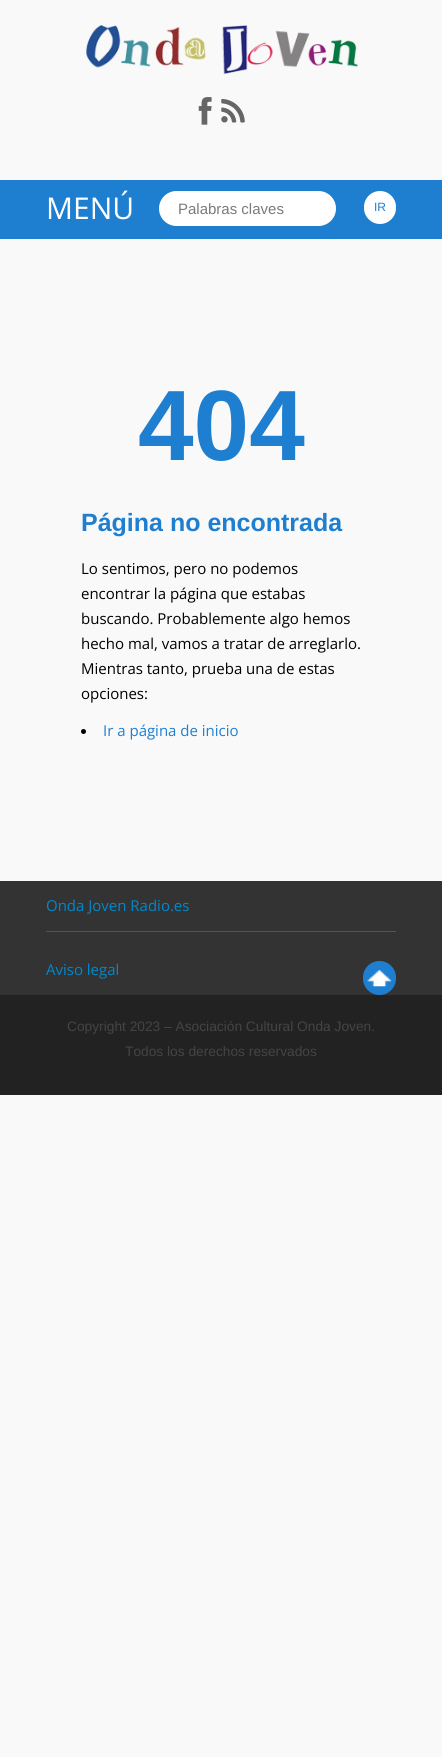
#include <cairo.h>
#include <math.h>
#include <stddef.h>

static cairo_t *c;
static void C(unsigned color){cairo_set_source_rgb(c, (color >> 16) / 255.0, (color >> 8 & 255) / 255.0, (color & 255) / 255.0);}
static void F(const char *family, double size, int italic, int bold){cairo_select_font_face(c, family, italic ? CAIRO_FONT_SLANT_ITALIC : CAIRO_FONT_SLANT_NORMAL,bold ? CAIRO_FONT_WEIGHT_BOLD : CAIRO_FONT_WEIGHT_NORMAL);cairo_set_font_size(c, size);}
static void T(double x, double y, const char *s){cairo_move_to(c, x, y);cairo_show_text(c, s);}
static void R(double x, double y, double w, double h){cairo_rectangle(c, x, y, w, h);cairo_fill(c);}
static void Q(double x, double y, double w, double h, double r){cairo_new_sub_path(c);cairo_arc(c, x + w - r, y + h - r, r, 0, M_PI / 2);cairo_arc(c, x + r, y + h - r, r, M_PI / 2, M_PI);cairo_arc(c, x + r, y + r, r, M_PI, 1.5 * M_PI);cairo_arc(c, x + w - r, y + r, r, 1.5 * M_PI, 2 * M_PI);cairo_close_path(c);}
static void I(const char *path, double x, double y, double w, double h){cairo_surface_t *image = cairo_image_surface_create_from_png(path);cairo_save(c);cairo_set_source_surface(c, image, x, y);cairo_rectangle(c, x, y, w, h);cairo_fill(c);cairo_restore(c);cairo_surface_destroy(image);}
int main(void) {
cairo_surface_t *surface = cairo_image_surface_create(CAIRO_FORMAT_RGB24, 442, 1757);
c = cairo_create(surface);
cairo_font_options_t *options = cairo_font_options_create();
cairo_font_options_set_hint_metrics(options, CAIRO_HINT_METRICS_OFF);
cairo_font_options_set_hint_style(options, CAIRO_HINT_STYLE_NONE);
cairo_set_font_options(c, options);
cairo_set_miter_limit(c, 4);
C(0xf9f9f9);
cairo_paint(c);
I("1.png",86,25,272,49);
I("2.png",198,97,14,28);
I("3.png",221,98,24,25);
C(0x1e7fd1);
R(0,180,442,59);
F("Open Sans",30,0,0);
C(0xffffff);
T(46,219,"MENÚ");
Q(159,191,177,35,17.5);
cairo_fill(c);
F("Liberation Sans",15,0,0);
C(0x7a7a7a);
T(178,214,"Palabras claves");
C(0xffffff);
Q(364,191,32,33,16);
cairo_fill(c);
F("Liberation Sans",12,0,0);
C(0x1e7fd1);
T(374,211,"IR");
F("Liberation Sans",100,0,1);
T(138,460,"404");
F("Liberation Sans",25,0,1);
T(81,531,"Página no encontrada");
F("Open Sans",15,0,0);
C(0x000000);
T(81,574,"Lo sentimos, pero no podemos");
T(81,599,"encontrar la página que estabas");
T(81,624,"buscando. Probablemente algo hemos");
T(81,649,"hecho mal, vamos a tratar de arreglarlo.");
T(81,674,"Mientras tanto, prueba una de estas");
T(81,699,"opciones:");
cairo_new_path(c);
cairo_arc(c,83.5,731.5,2.5,0,2 * M_PI);
cairo_fill(c);
C(0x1e7fd1);
T(103,736,"Ir a página de inicio");
C(0x333333);
R(0,881,442,114);
C(0x555555);
R(46,931,350,1);
C(0x0088cc);
T(46,911,"Onda Joven Radio.es");
C(0x1e7fd1);
Q(363,961,33,34,16.5);
cairo_fill(c);
I("4.png",367,970,25,17);
C(0x0088cc);
T(46,975,"Aviso legal");
C(0x222222);
R(0,995,442,100);
F("Liberation Sans",13.75,0,0);
C(0x444444);
T(67,1031,"Copyright 2023 – Asociación Cultural Onda Joven.");
T(125,1056,"Todos los derechos reservados");
cairo_surface_write_to_png(surface, "o.png");
cairo_font_options_destroy(options);
cairo_destroy(c);
cairo_surface_destroy(surface);
return 0;
}
